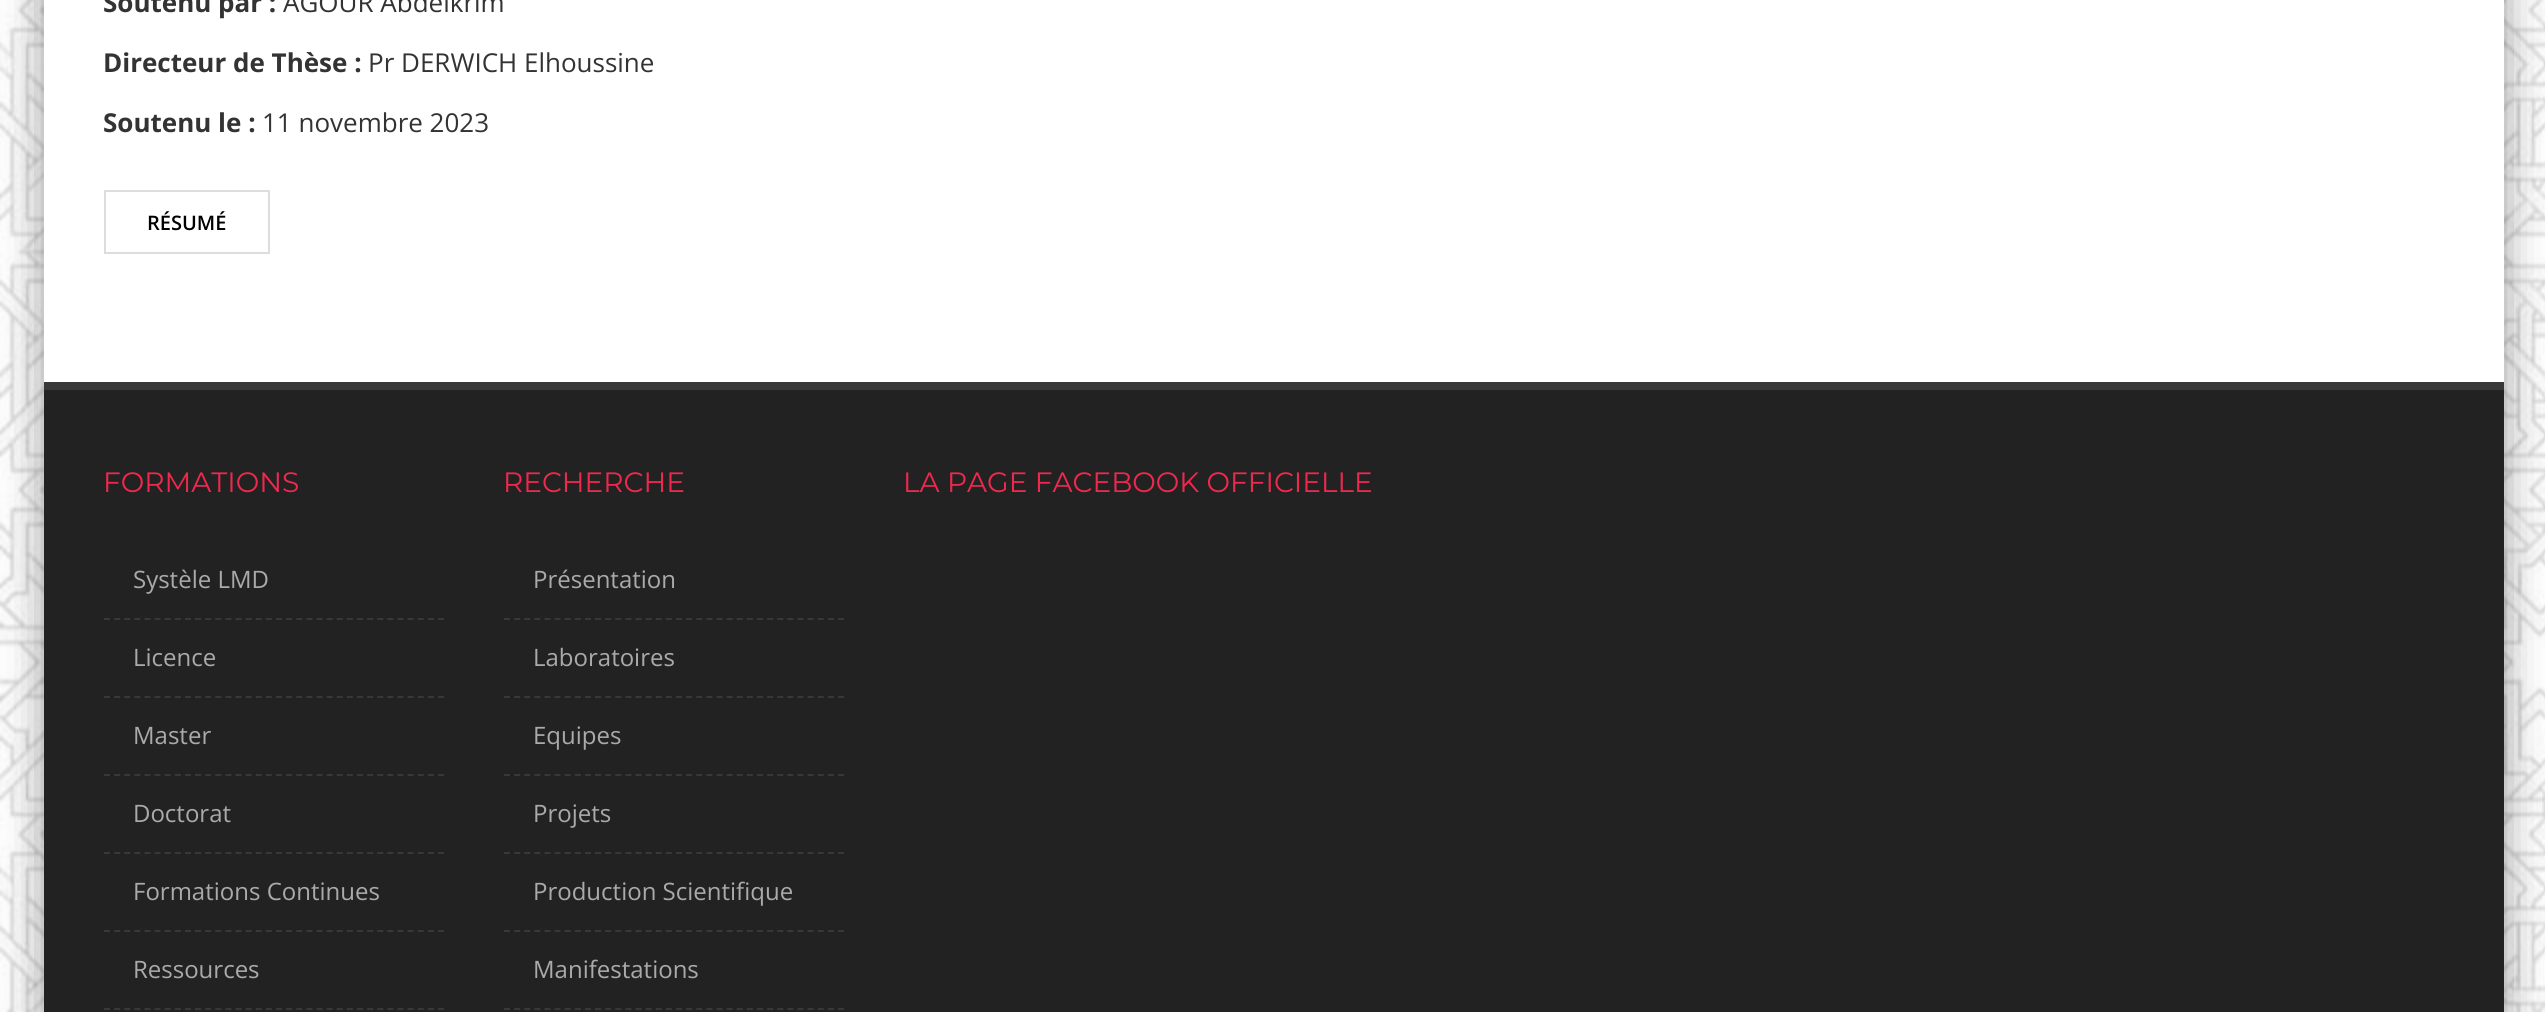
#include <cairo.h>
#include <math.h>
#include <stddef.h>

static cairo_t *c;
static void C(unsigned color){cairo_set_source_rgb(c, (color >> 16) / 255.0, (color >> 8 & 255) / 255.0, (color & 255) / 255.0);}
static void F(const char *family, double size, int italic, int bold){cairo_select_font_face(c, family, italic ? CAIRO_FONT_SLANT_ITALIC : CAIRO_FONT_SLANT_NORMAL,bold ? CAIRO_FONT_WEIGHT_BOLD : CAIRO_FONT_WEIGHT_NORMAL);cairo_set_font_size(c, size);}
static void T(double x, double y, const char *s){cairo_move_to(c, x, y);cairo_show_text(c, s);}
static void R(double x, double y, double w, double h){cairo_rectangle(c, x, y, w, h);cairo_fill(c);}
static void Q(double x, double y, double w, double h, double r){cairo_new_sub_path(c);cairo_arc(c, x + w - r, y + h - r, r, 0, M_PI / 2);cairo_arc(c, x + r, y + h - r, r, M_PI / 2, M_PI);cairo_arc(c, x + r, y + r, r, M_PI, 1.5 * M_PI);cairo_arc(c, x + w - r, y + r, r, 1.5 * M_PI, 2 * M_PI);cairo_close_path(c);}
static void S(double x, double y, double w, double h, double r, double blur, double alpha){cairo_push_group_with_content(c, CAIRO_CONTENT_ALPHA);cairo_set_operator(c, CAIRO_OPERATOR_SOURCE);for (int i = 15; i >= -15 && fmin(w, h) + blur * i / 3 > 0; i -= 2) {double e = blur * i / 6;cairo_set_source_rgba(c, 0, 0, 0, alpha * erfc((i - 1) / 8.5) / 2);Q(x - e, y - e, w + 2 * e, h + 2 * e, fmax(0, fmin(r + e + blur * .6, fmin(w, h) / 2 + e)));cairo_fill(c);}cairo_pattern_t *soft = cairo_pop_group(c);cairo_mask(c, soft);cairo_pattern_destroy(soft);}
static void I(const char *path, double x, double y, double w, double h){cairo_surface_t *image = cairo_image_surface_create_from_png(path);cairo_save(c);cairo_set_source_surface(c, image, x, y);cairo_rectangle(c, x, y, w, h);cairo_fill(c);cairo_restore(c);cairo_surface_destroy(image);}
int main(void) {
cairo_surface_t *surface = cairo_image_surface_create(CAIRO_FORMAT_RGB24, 2545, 1012);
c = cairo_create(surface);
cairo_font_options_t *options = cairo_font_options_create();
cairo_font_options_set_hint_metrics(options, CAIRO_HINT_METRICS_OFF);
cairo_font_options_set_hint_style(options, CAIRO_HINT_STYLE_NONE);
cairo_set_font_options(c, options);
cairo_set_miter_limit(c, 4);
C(0xffffff);
cairo_paint(c);
I("1.png",0,0,2545,1012);
C(0x000000);
S(44,-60,2460,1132,0,20,.4);
C(0xffffff);
R(44,0,2460,382);
F("Open Sans",26,0,1);
C(0x333333);
T(103,12,"Soutenu par :");
F("Open Sans",26,0,0);
T(283,12,"AGOUR Abdelkrim");
F("Open Sans",26,0,1);
T(103,72,"Directeur de Thèse :");
F("Open Sans",26,0,0);
T(368,72,"Pr DERWICH Elhoussine");
F("Open Sans",26,0,1);
T(103,132,"Soutenu le :");
F("Open Sans",26,0,0);
T(262,132,"11 novembre 2023");
cairo_rectangle(c,105,191,164,62);
C(0xdddddd);
cairo_stroke(c);
F("Open Sans SemiBold",20,0,0);
C(0x000000);
T(147,230,"RÉSUMÉ");
C(0x222222);
R(44,390,2460,622);
C(0x383838);
R(44,382,2460,8);
F("Montserrat",28,0,0);
C(0xf1284e);
T(103,492,"FORMATIONS");
cairo_new_path(c);
cairo_move_to(c,104,619);
cairo_line_to(c,444,619);
C(0x383838);
cairo_set_dash(c,(double[]){6,4.12},2,0);
cairo_stroke(c);
F("Open Sans",24,0,0);
C(0xaaaaaa);
T(133,588,"Systèle LMD");
cairo_new_path(c);
cairo_move_to(c,104,697);
cairo_line_to(c,444,697);
C(0x383838);
cairo_stroke(c);
C(0xaaaaaa);
T(133,666,"Licence");
cairo_new_path(c);
cairo_move_to(c,104,775);
cairo_line_to(c,444,775);
C(0x383838);
cairo_stroke(c);
C(0xaaaaaa);
T(133,744,"Master");
cairo_new_path(c);
cairo_move_to(c,104,853);
cairo_line_to(c,444,853);
C(0x383838);
cairo_stroke(c);
C(0xaaaaaa);
T(133,822,"Doctorat");
cairo_new_path(c);
cairo_move_to(c,104,931);
cairo_line_to(c,444,931);
C(0x383838);
cairo_stroke(c);
C(0xaaaaaa);
T(133,900,"Formations Continues");
cairo_new_path(c);
cairo_move_to(c,104,1009);
cairo_line_to(c,444,1009);
C(0x383838);
cairo_stroke(c);
C(0xaaaaaa);
T(133,978,"Ressources");
F("Montserrat",28,0,0);
C(0xf1284e);
T(503,492,"RECHERCHE");
cairo_new_path(c);
cairo_move_to(c,504,619);
cairo_line_to(c,844,619);
C(0x383838);
cairo_stroke(c);
F("Open Sans",24,0,0);
C(0xaaaaaa);
T(533,588,"Présentation");
cairo_new_path(c);
cairo_move_to(c,504,697);
cairo_line_to(c,844,697);
C(0x383838);
cairo_stroke(c);
C(0xaaaaaa);
T(533,666,"Laboratoires");
cairo_new_path(c);
cairo_move_to(c,504,775);
cairo_line_to(c,844,775);
C(0x383838);
cairo_stroke(c);
C(0xaaaaaa);
T(533,744,"Equipes");
cairo_new_path(c);
cairo_move_to(c,504,853);
cairo_line_to(c,844,853);
C(0x383838);
cairo_stroke(c);
C(0xaaaaaa);
T(533,822,"Projets");
cairo_new_path(c);
cairo_move_to(c,504,931);
cairo_line_to(c,844,931);
C(0x383838);
cairo_stroke(c);
C(0xaaaaaa);
T(533,900,"Production Scientifique");
cairo_new_path(c);
cairo_move_to(c,504,1009);
cairo_line_to(c,844,1009);
C(0x383838);
cairo_stroke(c);
C(0xaaaaaa);
T(533,978,"Manifestations");
F("Montserrat",28,0,0);
C(0xf1284e);
T(903,492,"LA PAGE FACEBOOK OFFICIELLE");
cairo_surface_write_to_png(surface, "o.png");
cairo_font_options_destroy(options);
cairo_destroy(c);
cairo_surface_destroy(surface);
return 0;
}
